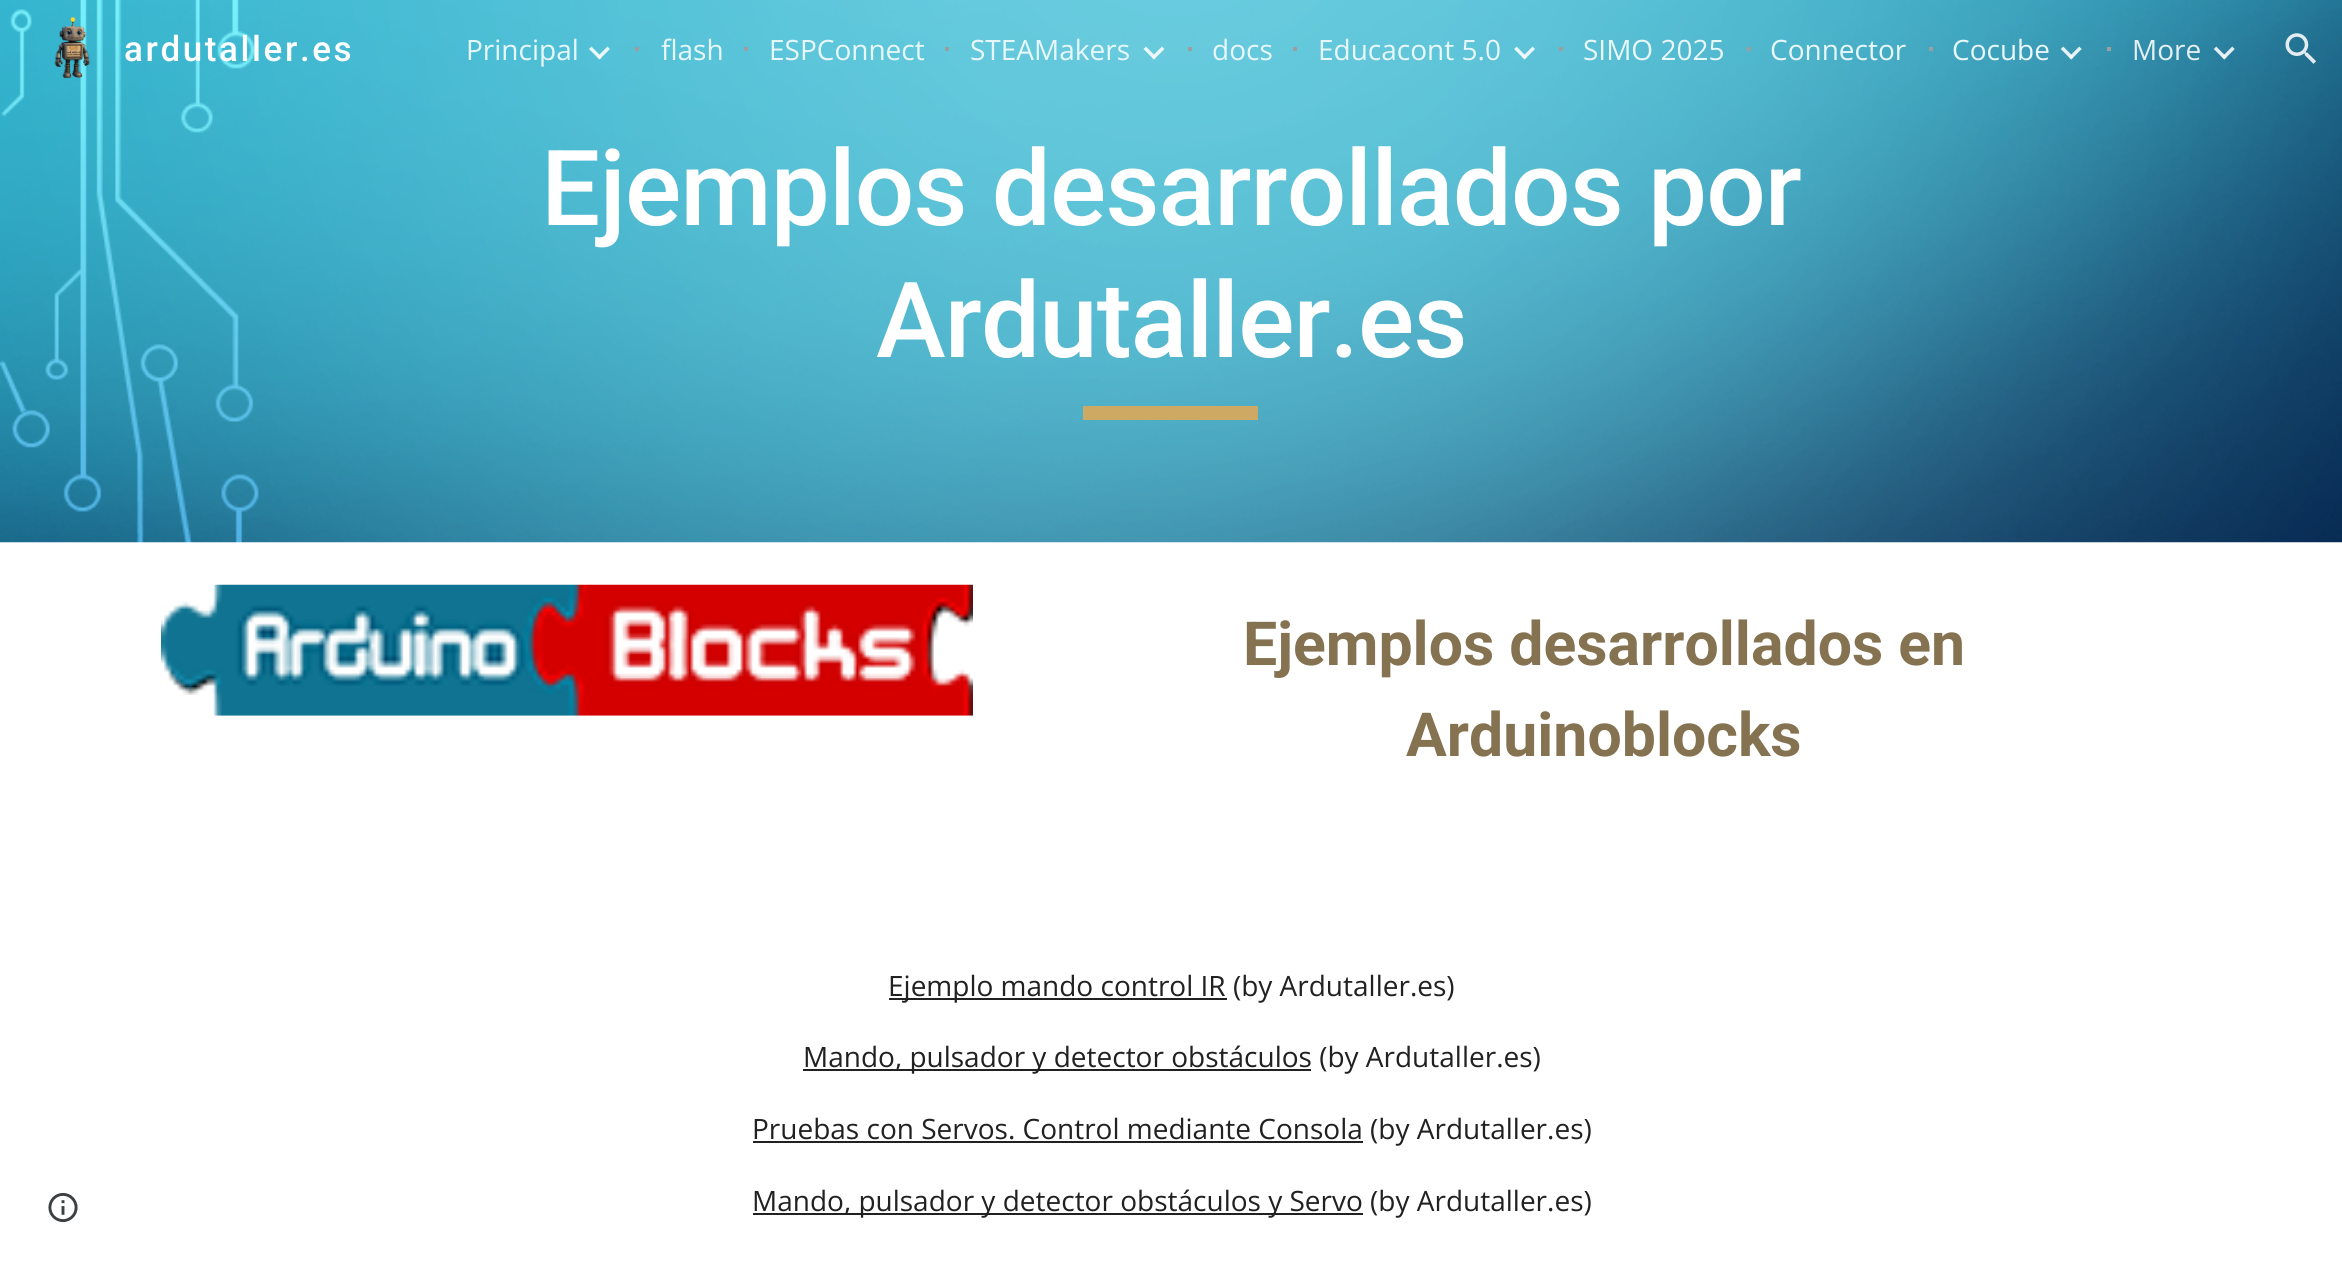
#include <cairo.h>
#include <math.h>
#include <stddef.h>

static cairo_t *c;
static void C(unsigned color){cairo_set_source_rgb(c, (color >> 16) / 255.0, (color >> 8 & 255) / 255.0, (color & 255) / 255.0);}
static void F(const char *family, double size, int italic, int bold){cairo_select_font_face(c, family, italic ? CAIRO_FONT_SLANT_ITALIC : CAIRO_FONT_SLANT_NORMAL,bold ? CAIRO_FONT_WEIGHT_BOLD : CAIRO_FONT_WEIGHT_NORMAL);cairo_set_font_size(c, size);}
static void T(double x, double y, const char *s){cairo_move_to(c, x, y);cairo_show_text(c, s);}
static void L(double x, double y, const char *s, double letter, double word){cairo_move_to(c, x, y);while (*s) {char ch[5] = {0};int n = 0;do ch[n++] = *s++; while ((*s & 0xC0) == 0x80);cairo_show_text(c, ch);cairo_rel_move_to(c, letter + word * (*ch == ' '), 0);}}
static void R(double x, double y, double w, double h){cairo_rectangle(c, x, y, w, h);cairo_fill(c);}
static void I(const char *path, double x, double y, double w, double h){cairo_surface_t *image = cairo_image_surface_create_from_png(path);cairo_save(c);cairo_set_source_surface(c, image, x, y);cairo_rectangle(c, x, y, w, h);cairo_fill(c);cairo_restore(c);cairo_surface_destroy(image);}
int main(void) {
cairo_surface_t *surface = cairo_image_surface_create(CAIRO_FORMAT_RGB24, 2342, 1267);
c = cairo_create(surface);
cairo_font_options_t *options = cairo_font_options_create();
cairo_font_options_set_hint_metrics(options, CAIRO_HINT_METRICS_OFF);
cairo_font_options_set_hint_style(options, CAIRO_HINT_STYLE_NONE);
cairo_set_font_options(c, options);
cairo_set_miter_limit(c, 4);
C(0xffffff);
cairo_paint(c);
I("9.png",0,0,2342,543);
I("1.png",54,17,36,62);
F("Roboto Medium",35,0,0);
C(0xffffff);
L(124,61,"ardutaller.es",2.6,0);
F("Open Sans",28,0,0);
C(0xe8f7fa);
T(466,60,"Principal");
I("2.png",589,46,21,14);
C(0x9e9e9e);
R(635,47,4,4);
C(0xe8f7fa);
T(661,60,"flash");
C(0x9e9e9e);
R(744,47,4,4);
C(0xe8f7fa);
T(769,60,"ESPConnect");
C(0x9e9e9e);
R(945,47,4,4);
C(0xe8f7fa);
T(970,60,"STEAMakers");
I("3.png",1143,46,22,14);
C(0x9e9e9e);
R(1188,47,4,4);
C(0xe8f7fa);
T(1212,60,"docs");
C(0x9e9e9e);
R(1293,47,4,4);
C(0xe8f7fa);
T(1318,60,"Educacont 5.0");
I("4.png",1514,46,21,14);
C(0x9e9e9e);
R(1559,47,4,4);
C(0xe8f7fa);
T(1583,60,"SIMO 2025");
C(0x9e9e9e);
R(1747,47,4,4);
C(0xe8f7fa);
T(1770,60,"Connector");
C(0x9e9e9e);
R(1929,47,4,4);
C(0xe8f7fa);
T(1952,60,"Cocube");
I("5.png",2060,46,22,14);
C(0x9e9e9e);
R(2107,47,4,4);
C(0xe4f0f4);
T(2132,60,"More");
I("6.png",2213,46,22,14);
I("7.png",2285,33,31,31);
I("8.png",48,1192,30,31);
F("Roboto Medium",105,0,0);
C(0xffffff);
L(541,225,"Ejemplos desarrollados por",-.9,0);
L(876,357,"Ardutaller.es",-.9,0);
C(0xcea964);
R(1083,406,175,14);
I("10.png",161,584,812,132);
F("Roboto",60.75,0,1);
C(0x857251);
T(1243,665,"Ejemplos desarrollados en");
T(1406,756,"Arduinoblocks");
C(0x212121);
R(889,998,338,2);
F("Open Sans",28,0,0);
T(888,996,"Ejemplo mando control IR (by Ardutaller.es)");
R(803,1069,508,2);
T(803,1067,"Mando, pulsador y detector obstáculos (by Ardutaller.es)");
R(753,1141,610,2);
T(752,1139,"Pruebas con Servos. Control mediante Consola (by Ardutaller.es)");
R(753,1213,610,2);
T(752,1211,"Mando, pulsador y detector obstáculos y Servo (by Ardutaller.es)");
cairo_surface_write_to_png(surface, "o.png");
cairo_font_options_destroy(options);
cairo_destroy(c);
cairo_surface_destroy(surface);
return 0;
}
